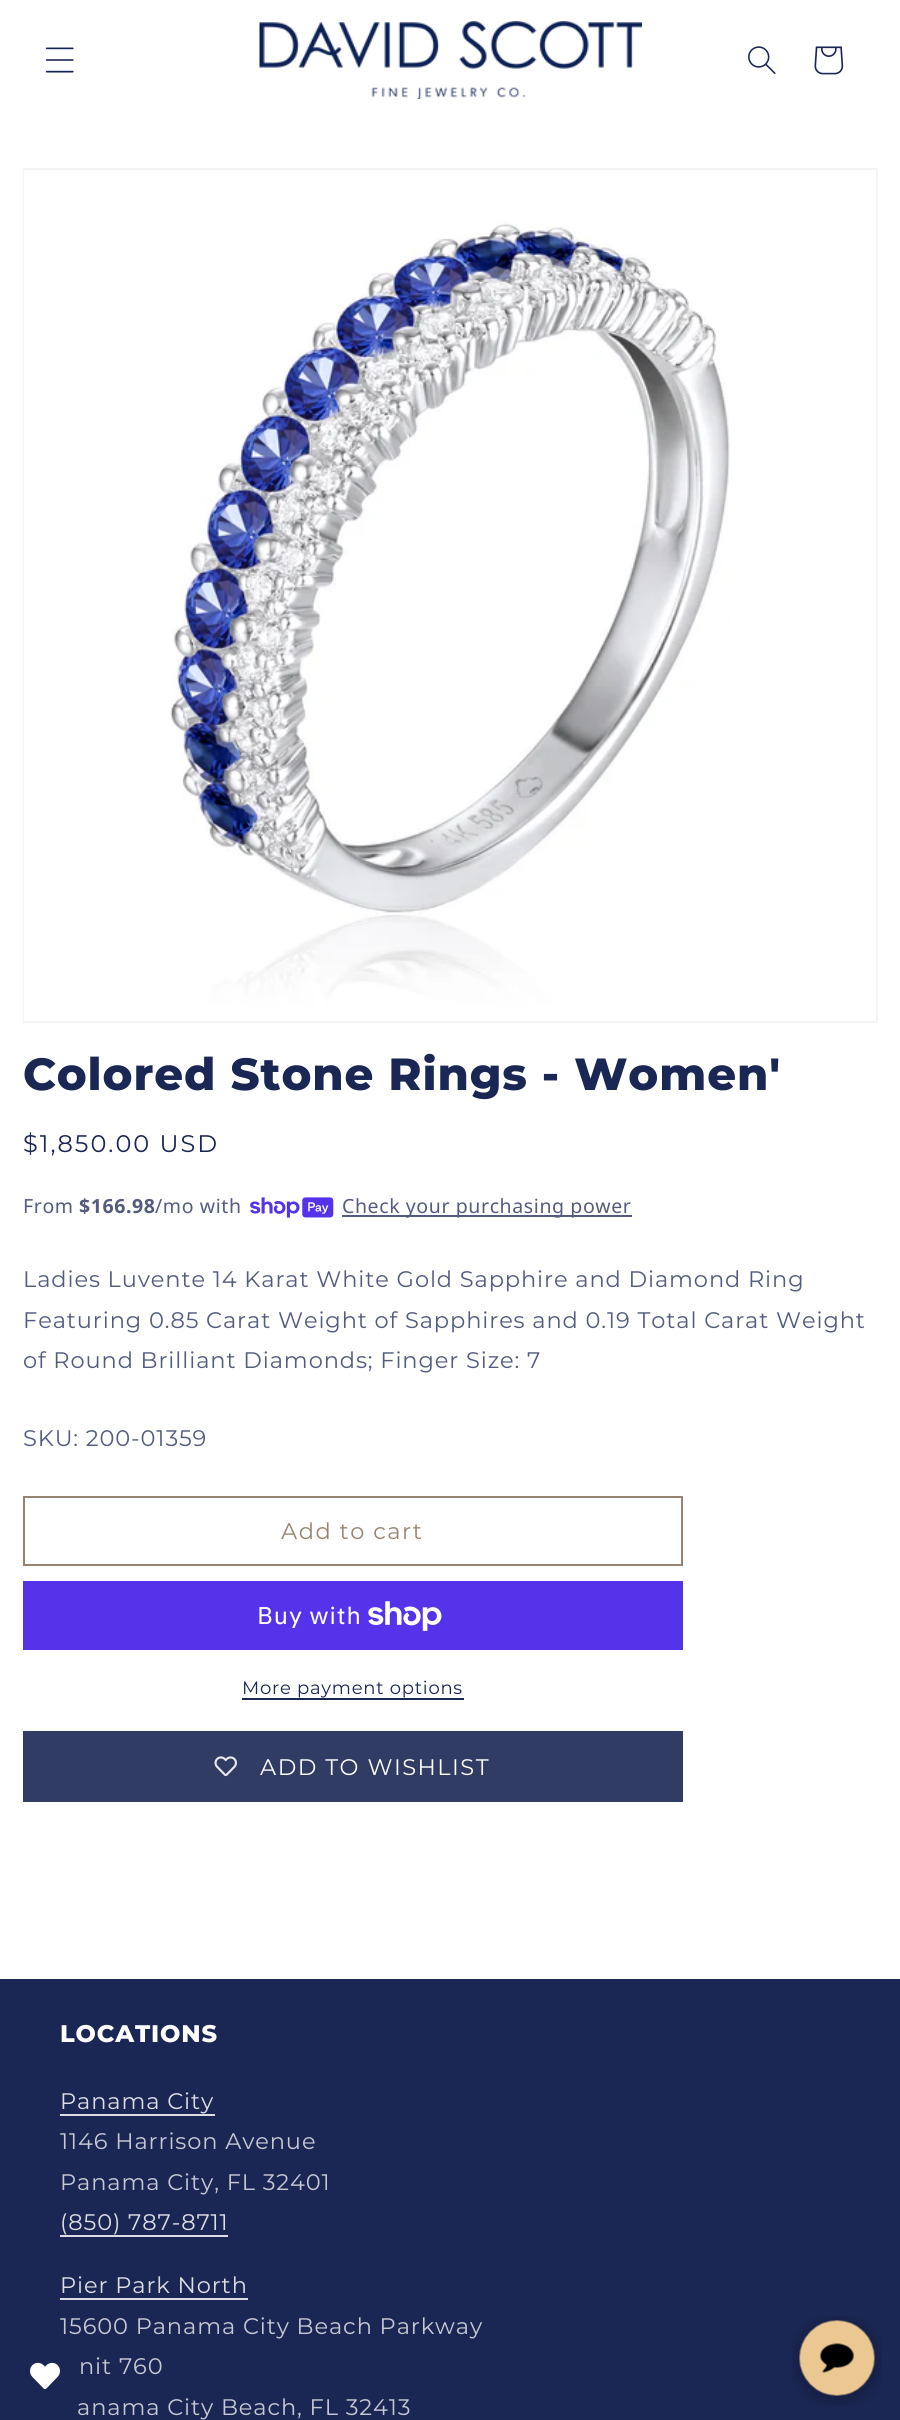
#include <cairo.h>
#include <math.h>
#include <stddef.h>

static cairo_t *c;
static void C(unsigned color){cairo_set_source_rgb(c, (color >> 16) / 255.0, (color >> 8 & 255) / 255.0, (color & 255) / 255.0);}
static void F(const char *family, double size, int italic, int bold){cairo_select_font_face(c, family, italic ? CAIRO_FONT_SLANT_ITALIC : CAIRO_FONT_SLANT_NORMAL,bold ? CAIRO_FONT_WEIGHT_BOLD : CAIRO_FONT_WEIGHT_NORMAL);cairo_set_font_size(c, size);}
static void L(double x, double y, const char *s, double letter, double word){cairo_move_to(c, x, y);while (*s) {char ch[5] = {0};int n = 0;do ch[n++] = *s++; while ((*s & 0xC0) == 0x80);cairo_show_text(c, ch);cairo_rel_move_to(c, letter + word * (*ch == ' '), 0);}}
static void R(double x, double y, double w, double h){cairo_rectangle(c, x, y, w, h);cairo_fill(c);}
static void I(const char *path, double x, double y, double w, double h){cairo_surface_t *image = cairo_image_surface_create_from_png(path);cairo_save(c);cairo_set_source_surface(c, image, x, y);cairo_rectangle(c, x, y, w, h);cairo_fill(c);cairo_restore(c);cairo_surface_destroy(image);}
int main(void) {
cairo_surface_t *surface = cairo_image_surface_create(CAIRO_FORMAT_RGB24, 900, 2420);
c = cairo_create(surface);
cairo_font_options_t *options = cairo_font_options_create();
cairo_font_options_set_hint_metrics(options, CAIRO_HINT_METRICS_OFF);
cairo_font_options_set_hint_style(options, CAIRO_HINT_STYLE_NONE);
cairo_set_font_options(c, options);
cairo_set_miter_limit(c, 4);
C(0xffffff);
cairo_paint(c);
I("1.png",45,47,29,26);
I("2.png",259,21,383,78);
I("3.png",748,46,28,28);
I("4.png",814,46,30,29);
cairo_rectangle(c,24,169,853,853);
C(0xf4f4f6);
cairo_stroke(c);
I("5.png",24,170,706,851);
F("Montserrat ExtraBold",45,0,0);
C(0x1a2653);
L(23,1090,"Colored Stone Rings - Women'",.9,0);
F("Montserrat",24,0,0);
L(23,1152,"$1,850.00 USD",2,0);
F("Noto Sans",19.5,0,0);
C(0x535c7e);
L(23,1213,"From",.6,0);
F("Noto Sans",19.5,0,1);
L(79,1213,"$166.98",.6,0);
F("Noto Sans",19.5,0,0);
L(155,1213,"/mo with",.6,0);
I("6.png",250,1197,84,21);
R(342,1215,290,2);
L(342,1213,"Check your purchasing power",.6,0);
F("Montserrat",22.5,0,0);
L(23,1287,"Ladies Luvente 14 Karat White Gold Sapphire and Diamond Ring",.9,0);
L(23,1328,"Featuring 0.85 Carat Weight of Sapphires and 0.19 Total Carat Weight",.9,0);
L(23,1368,"of Round Brilliant Diamonds; Finger Size: 7",.9,0);
L(23,1446,"SKU: 200-01359",.9,0);
cairo_rectangle(c,24,1497,658,68);
C(0x978470);
cairo_stroke(c);
L(281,1539,"Add to cart",1.5,0);
C(0x5433eb);
R(23,1581,660,69);
F("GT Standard",24,0,0);
C(0xffffff);
L(257,1624,"Buy with",.9,0);
I("7.png",368,1601,74,30);
F("Montserrat",18,0,0);
C(0x1a2653);
L(242,1694,"More payment options",.75,0);
R(242,1698,222,2);
C(0x313c64);
R(23,1731,660,71);
I("8.png",214,1756,23,21);
F("Montserrat",22.5,0,0);
C(0xffffff);
L(260,1775,"ADD TO WISHLIST",1.5,0);
C(0x1a2653);
R(0,1979,900,441);
I("9.png",30,2362,30,28);
F("Montserrat ExtraBold",24,0,0);
C(0xffffff);
L(60,2042,"LOCATIONS",.9,0);
F("Montserrat",22.5,0,0);
C(0xdddee5);
L(60,2109,"Panama City",.9,0);
R(60,2114,155,2);
C(0xc6c9d4);
L(60,2149,"1146 Harrison Avenue",.9,0);
L(60,2190,"Panama City, FL 32401",.9,0);
C(0xdddee5);
L(60,2230,"(850) 787-8711",.9,0);
R(60,2235,168,2);
L(60,2293,"Pier Park North",.9,0);
R(60,2298,188,2);
C(0xc6c9d4);
L(60,2334,"15600 Panama City Beach Parkway",.9,0);
L(79,2374,"nit 760",.9,0);
L(77,2415,"anama City Beach, FL 32413",.9,0);
I("10.png",792,2316,90,90);
cairo_surface_write_to_png(surface, "o.png");
cairo_font_options_destroy(options);
cairo_destroy(c);
cairo_surface_destroy(surface);
return 0;
}
